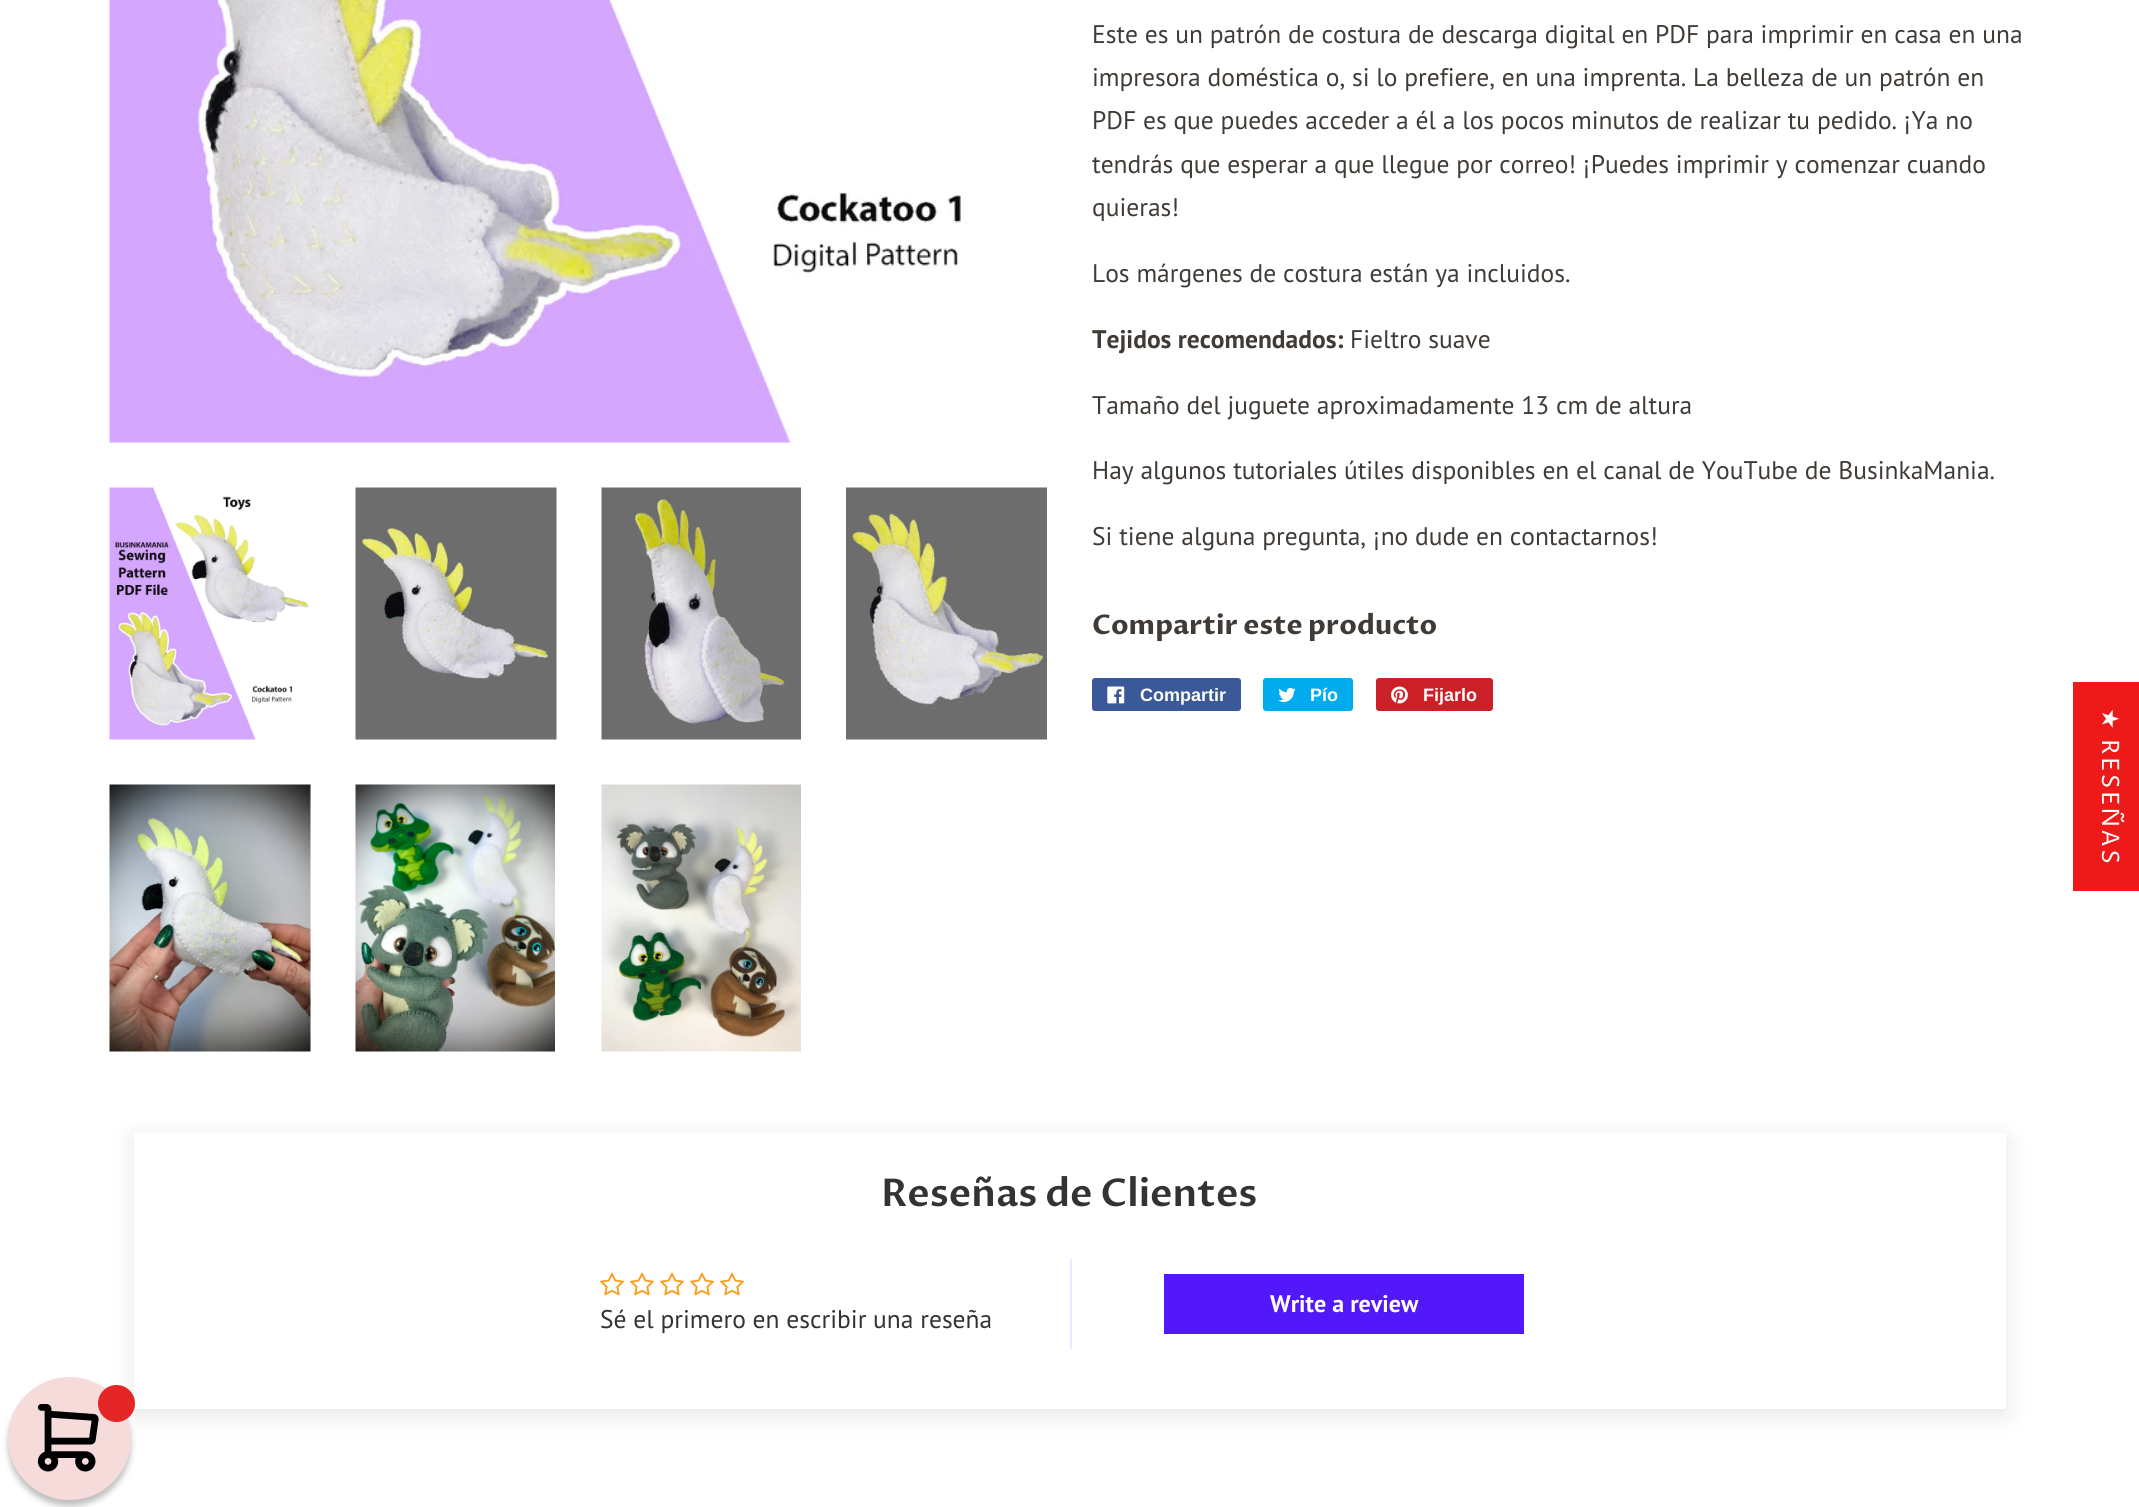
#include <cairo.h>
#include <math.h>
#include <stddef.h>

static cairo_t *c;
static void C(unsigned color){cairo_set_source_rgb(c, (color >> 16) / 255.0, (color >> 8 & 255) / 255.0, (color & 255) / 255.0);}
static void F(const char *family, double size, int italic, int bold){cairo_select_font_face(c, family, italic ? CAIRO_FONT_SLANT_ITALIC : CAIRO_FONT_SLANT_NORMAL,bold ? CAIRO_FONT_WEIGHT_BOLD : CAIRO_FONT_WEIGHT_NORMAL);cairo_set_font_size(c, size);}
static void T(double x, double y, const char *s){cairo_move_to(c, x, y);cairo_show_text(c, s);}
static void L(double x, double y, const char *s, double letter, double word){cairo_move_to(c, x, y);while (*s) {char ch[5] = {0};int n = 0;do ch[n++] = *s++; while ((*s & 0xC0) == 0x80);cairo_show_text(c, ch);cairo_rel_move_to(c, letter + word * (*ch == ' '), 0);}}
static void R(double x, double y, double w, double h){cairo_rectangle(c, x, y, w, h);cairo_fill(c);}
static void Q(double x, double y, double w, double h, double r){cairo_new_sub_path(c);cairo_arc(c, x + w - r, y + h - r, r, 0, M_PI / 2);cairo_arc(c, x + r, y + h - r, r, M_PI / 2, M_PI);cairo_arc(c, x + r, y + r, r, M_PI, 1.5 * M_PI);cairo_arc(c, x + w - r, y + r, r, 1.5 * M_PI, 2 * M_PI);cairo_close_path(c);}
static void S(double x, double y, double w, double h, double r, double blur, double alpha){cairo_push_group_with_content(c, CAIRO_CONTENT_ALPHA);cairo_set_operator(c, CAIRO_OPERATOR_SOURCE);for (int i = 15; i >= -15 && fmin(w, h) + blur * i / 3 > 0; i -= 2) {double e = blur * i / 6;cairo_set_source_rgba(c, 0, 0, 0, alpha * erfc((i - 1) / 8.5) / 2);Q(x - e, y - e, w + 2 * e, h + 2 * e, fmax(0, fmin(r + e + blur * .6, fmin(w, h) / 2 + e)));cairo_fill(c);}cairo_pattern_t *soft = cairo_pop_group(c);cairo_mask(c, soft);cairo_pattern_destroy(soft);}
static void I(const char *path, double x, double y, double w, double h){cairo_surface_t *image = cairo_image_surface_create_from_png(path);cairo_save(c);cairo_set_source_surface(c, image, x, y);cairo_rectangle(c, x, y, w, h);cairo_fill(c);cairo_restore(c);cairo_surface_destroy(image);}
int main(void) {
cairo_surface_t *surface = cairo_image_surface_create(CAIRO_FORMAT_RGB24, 2139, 1507);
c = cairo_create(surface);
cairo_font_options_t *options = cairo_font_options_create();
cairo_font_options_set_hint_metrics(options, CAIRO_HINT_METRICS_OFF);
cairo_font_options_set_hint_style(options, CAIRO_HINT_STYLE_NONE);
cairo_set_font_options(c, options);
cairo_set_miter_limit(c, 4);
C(0xffffff);
cairo_paint(c);
I("1.png",109,0,852,443);
I("2.png",109,487,200,253);
I("3.png",355,487,202,253);
I("4.png",601,487,200,253);
I("5.png",846,487,201,253);
I("6.png",109,784,202,268);
I("7.png",355,784,200,268);
I("8.png",601,784,200,268);
F("PT Sans",25.5,0,0);
C(0x403b37);
T(1092,43,"Este es un patrón de costura de descarga digital en PDF para imprimir en casa en una");
T(1092,86,"impresora doméstica o, si lo prefiere, en una imprenta. La belleza de un patrón en");
T(1092,129,"PDF es que puedes acceder a él a los pocos minutos de realizar tu pedido. ¡Ya no");
T(1092,173,"tendrás que esperar a que llegue por correo! ¡Puedes imprimir y comenzar cuando");
T(1092,216,"quieras!");
T(1092,282,"Los márgenes de costura están ya incluidos.");
F("PT Sans",25.5,0,1);
T(1092,348,"Tejidos recomendados:");
F("PT Sans",25.5,0,0);
T(1350,348,"Fieltro suave");
T(1092,414,"Tamaño del juguete aproximadamente 13 cm de altura");
T(1092,479,"Hay algunos tutoriales útiles disponibles en el canal de YouTube de BusinkaMania.");
T(1092,545,"Si tiene alguna pregunta, ¡no dude en contactarnos!");
F("Proza Libre",27,0,1);
T(1092,634,"Compartir este producto");
C(0x3b5998);
Q(1092,678,149,33,3);
cairo_fill(c);
I("9.png",1107,686,18,18);
F("Liberation Sans",18,0,1);
C(0xffffff);
T(1140,701,"Compartir");
C(0x00aced);
Q(1263,678,90,33,3);
cairo_fill(c);
I("10.png",1278,687,18,15);
C(0xffffff);
T(1310,701,"Pío");
C(0xcb2027);
Q(1376,678,117,33,3);
cairo_fill(c);
I("11.png",1391,686,17,18);
C(0xffffff);
T(1423,701,"Fijarlo");
C(0x000000);
S(134,1139,1872,276,0,12,.1);
C(0xffffff);
R(134,1133,1872,276);
F("Proza Libre SemiBold",38.25,0,0);
C(0x333333);
T(881,1206,"Reseñas de Clientes");
C(0xeee8ff);
R(1070,1259,2,90);
C(0x5218fa);
R(1164,1274,360,60);
F("PT Sans",24,0,1);
C(0xffffff);
T(1270,1312,"Write a review");
I("12.png",600,1272,24,24);
I("12.png",630,1272,24,24);
I("12.png",660,1272,24,24);
I("12.png",690,1272,24,24);
I("12.png",720,1272,24,24);
F("PT Sans",25.5,0,0);
C(0x333333);
T(600,1328,"Sé el primero en escribir una reseña");
C(0xee1a1a);
R(2073,682,66,209);
F("DejaVu Sans",24,0,0);
C(0xffffff);
cairo_save(c);
cairo_translate(c,2102,708);
cairo_rotate(c,90 * M_PI / 180);
L(0,0,"★",2.5,0);
cairo_restore(c);
F("Proza Libre",24,0,0);
cairo_save(c);
cairo_translate(c,2102,739);
cairo_rotate(c,90 * M_PI / 180);
L(0,0,"RESEÑAS",2.5,0);
cairo_restore(c);
C(0x000000);
S(8,1383,123,123,61.5,3,.25);
C(0xf6dbdb);
cairo_arc(c,69.5,1438.5,61.5,0,2 * M_PI);
cairo_fill(c);
C(0xe42626);
cairo_arc(c,116.5,1403.5,18.5,0,2 * M_PI);
cairo_fill(c);
I("13.png",37,1404,62,68);
cairo_surface_write_to_png(surface, "o.png");
cairo_font_options_destroy(options);
cairo_destroy(c);
cairo_surface_destroy(surface);
return 0;
}
